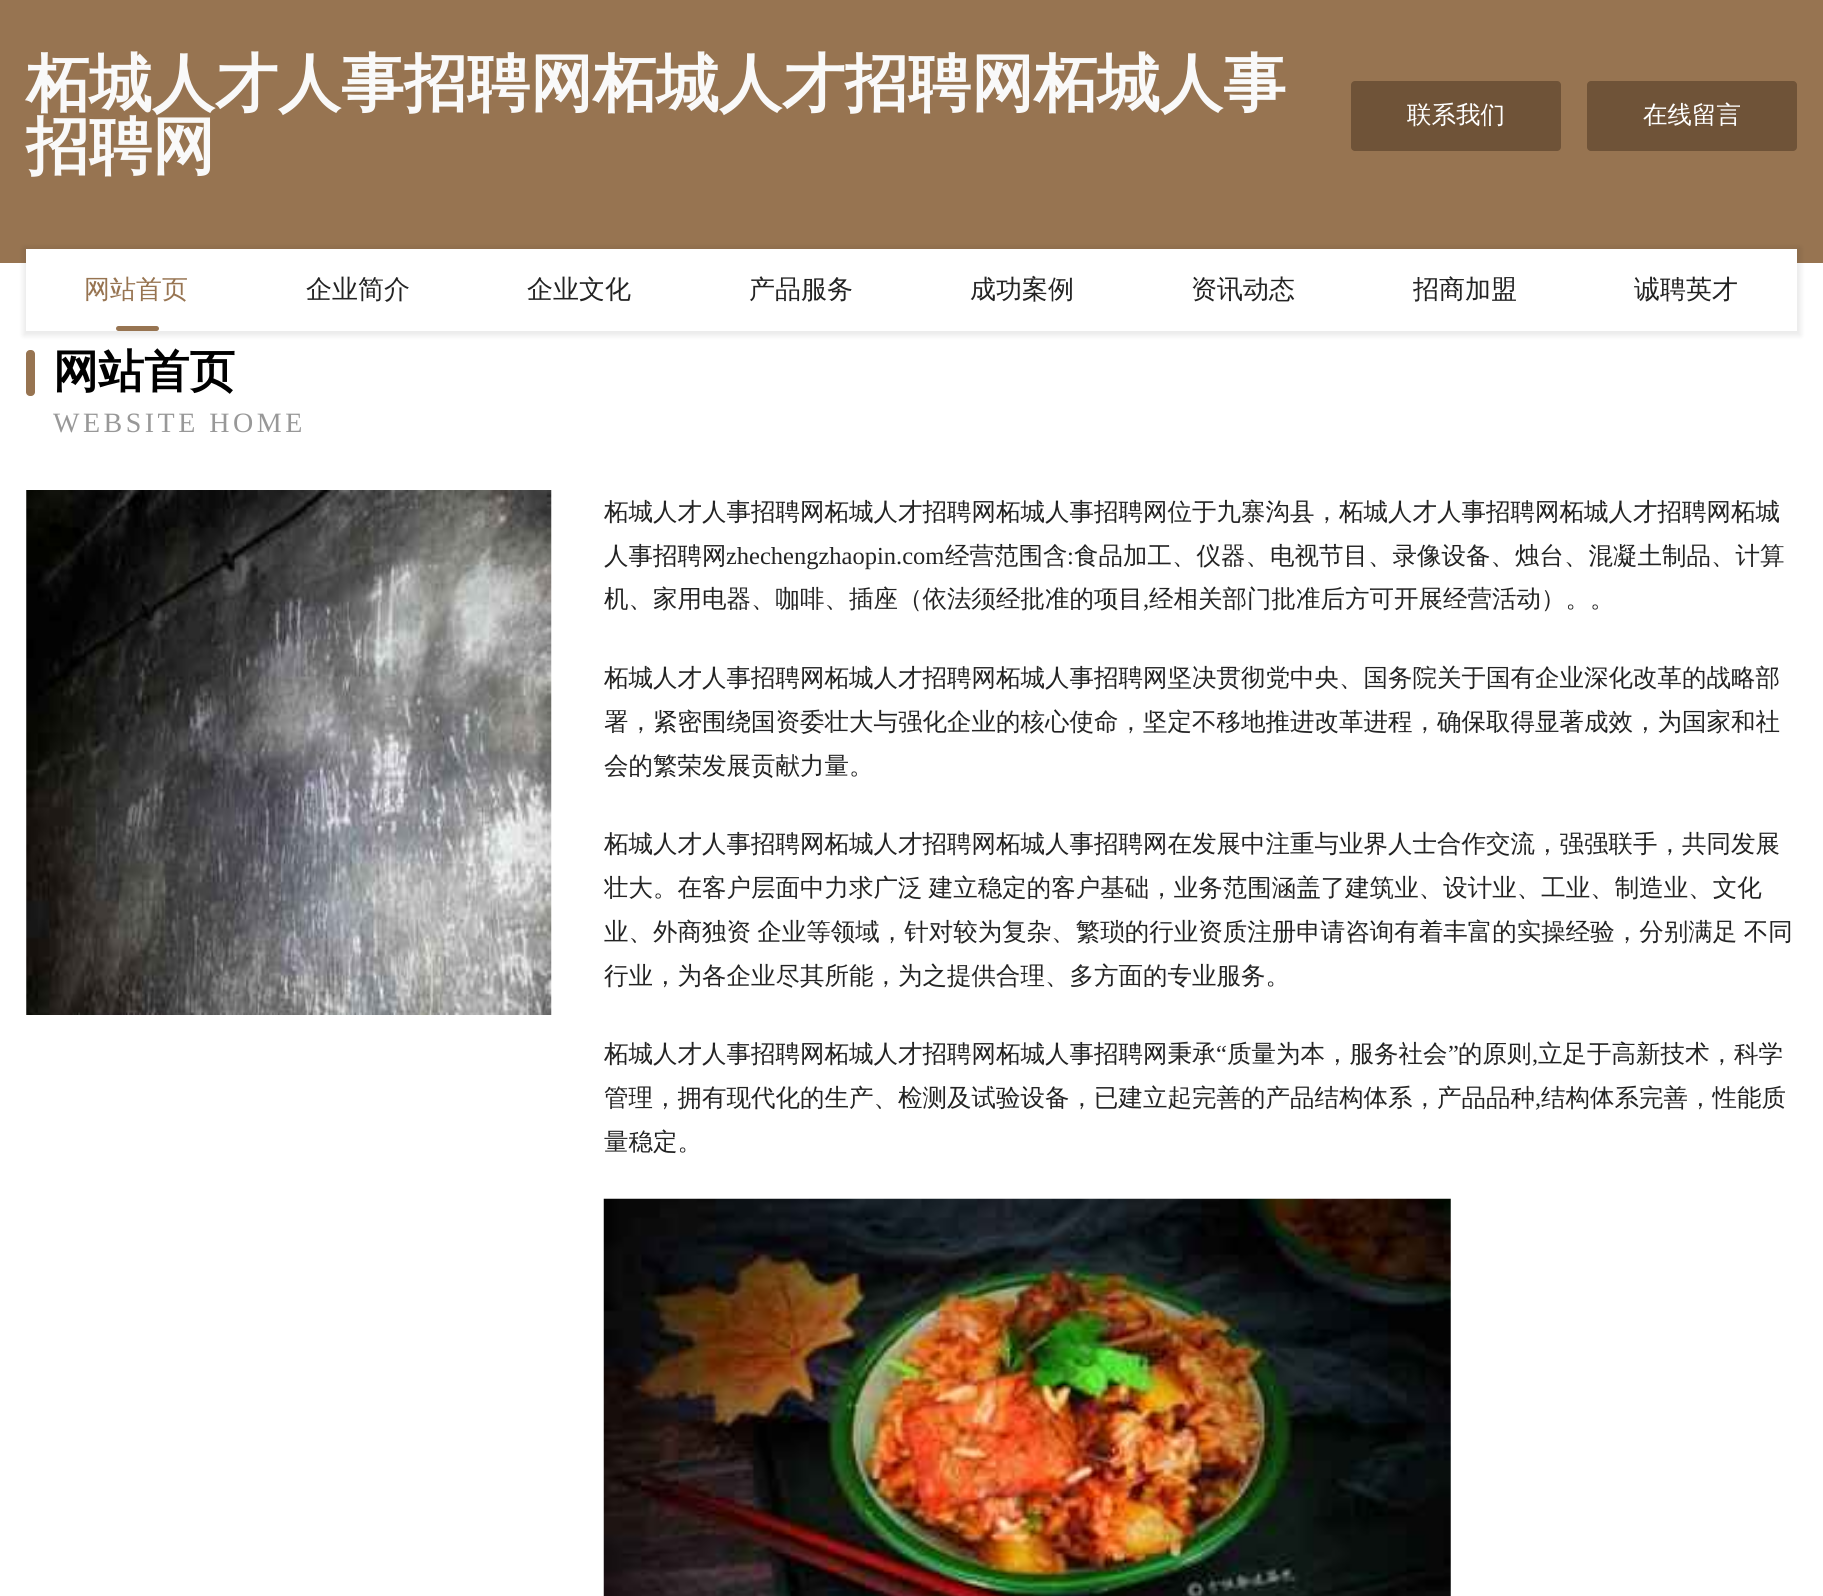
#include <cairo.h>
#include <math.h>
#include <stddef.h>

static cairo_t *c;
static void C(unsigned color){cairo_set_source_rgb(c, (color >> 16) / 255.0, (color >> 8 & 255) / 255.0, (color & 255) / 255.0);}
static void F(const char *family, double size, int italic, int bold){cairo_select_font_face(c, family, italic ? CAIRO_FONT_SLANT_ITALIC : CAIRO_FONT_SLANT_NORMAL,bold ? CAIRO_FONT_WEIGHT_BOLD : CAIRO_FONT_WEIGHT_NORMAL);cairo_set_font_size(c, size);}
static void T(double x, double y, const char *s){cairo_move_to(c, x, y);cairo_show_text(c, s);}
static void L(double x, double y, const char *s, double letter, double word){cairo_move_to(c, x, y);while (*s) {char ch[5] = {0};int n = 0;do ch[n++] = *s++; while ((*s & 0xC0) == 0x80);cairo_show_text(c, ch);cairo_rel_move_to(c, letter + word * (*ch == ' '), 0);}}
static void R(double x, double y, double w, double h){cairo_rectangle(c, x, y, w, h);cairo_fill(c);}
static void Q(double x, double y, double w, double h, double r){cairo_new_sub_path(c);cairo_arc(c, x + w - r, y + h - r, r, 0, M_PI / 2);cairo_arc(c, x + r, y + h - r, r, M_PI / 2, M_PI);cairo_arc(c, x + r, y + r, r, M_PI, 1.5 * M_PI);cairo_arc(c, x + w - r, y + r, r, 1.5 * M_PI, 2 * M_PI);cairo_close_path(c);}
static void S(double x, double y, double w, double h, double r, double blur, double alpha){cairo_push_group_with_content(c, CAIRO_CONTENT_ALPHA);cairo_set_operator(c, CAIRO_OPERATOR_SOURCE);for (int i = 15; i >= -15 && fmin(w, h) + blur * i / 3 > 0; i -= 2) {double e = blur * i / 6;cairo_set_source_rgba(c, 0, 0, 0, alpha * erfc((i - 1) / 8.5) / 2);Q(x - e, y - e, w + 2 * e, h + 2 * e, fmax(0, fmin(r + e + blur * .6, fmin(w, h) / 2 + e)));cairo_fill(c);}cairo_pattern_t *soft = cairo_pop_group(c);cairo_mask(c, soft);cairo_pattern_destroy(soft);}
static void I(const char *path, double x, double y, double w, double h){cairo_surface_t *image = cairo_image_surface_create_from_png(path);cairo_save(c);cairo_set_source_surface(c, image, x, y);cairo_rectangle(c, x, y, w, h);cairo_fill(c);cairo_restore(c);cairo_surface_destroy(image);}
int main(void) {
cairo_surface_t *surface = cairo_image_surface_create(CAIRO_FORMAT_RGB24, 1823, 1596);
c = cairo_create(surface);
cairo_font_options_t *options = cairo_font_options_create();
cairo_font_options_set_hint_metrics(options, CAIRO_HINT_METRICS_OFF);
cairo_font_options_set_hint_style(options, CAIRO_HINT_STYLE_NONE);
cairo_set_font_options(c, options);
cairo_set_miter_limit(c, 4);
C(0xffffff);
cairo_paint(c);
C(0x977451);
R(0,0,1823,263);
F("WenQuanYi Zen Hei",63,0,1);
C(0xf9f9f9);
T(26,105,"柘城人才人事招聘网柘城人才招聘网柘城人事");
T(26,168,"招聘网");
C(0x6f5338);
Q(1351,81,210,70,4);
cairo_fill(c);
F("WenQuanYi Zen Hei Medium",24.5,0,0);
C(0xffffff);
T(1407,123,"联系我们");
C(0x6f5338);
Q(1587,81,210,70,4);
cairo_fill(c);
C(0xffffff);
T(1643,123,"在线留言");
C(0x000000);
S(23,247,1778,89,0,2.5,.08);
C(0xffffff);
R(26,249,1771,82);
F("WenQuanYi Zen Hei Medium",26,0,0);
C(0x977451);
T(84,298,"网站首页");
Q(116,326,43,5,2.5);
cairo_fill(c);
C(0x232323);
T(306,298,"企业简介");
T(527,298,"企业文化");
T(749,298,"产品服务");
T(970,298,"成功案例");
T(1191,298,"资讯动态");
T(1413,298,"招商加盟");
T(1634,298,"诚聘英才");
C(0x977451);
Q(26,350,9,46,4);
cairo_fill(c);
F("WenQuanYi Zen Hei",45.5,0,1);
C(0x000000);
T(53,387,"网站首页");
F("Liberation Serif",28,0,0);
C(0x989898);
L(53,432,"WEBSITE HOME",3.5,0);
I("1.png",26,490,526,525);
F("WenQuanYi Zen Hei Medium",24.5,0,0);
C(0x232323);
T(604,520,"柘城人才人事招聘网柘城人才招聘网柘城人事招聘网位于九寨沟县，柘城人才人事招聘网柘城人才招聘网柘城");
T(604,564,"人事招聘网");
F("Liberation Serif",24.5,0,0);
T(726,564,"zhechengzhaopin.com");
F("WenQuanYi Zen Hei Medium",24.5,0,0);
T(945,564,"经营范围含");
F("Liberation Serif",24.5,0,0);
T(1067,564,":");
F("WenQuanYi Zen Hei Medium",24.5,0,0);
T(1074,564,"食品加工、仪器、电视节目、录像设备、烛台、混凝土制品、计算");
T(604,607,"机、家用电器、咖啡、插座（依法须经批准的项目");
F("Liberation Serif",24.5,0,0);
T(1143,607,",");
F("WenQuanYi Zen Hei Medium",24.5,0,0);
T(1149,607,"经相关部门批准后方可开展经营活动）。。");
T(604,686,"柘城人才人事招聘网柘城人才招聘网柘城人事招聘网坚决贯彻党中央、国务院关于国有企业深化改革的战略部");
T(604,730,"署，紧密围绕国资委壮大与强化企业的核心使命，坚定不移地推进改革进程，确保取得显著成效，为国家和社");
T(604,774,"会的繁荣发展贡献力量。");
T(604,852,"柘城人才人事招聘网柘城人才招聘网柘城人事招聘网在发展中注重与业界人士合作交流，强强联手，共同发展");
L(604,896,"壮大。在客户层面中力求广泛 建立稳定的客户基础，业务范围涵盖了建筑业、设计业、工业、制造业、文化",0,-1);
L(604,940,"业、外商独资 企业等领域，针对较为复杂、繁琐的行业资质注册申请咨询有着丰富的实操经验，分别满足 不同",0,-1);
T(604,984,"行业，为各企业尽其所能，为之提供合理、多方面的专业服务。");
T(604,1062,"柘城人才人事招聘网柘城人才招聘网柘城人事招聘网秉承");
F("Liberation Serif",24.5,0,0);
T(1216,1062,"“");
F("WenQuanYi Zen Hei Medium",24.5,0,0);
T(1227,1062,"质量为本，服务社会");
F("Liberation Serif",24.5,0,0);
T(1448,1062,"”");
F("WenQuanYi Zen Hei Medium",24.5,0,0);
T(1458,1062,"的原则");
T(1538,1062,"立足于高新技术，科学");
F("Liberation Serif",24.5,0,0);
T(1532,1062,",");
F("WenQuanYi Zen Hei Medium",24.5,0,0);
T(604,1106,"管理，拥有现代化的生产、检测及试验设备，已建立起完善的产品结构体系，产品品种");
F("Liberation Serif",24.5,0,0);
T(1535,1106,",");
F("WenQuanYi Zen Hei Medium",24.5,0,0);
T(1541,1106,"结构体系完善，性能质");
T(604,1150,"量稳定。");
I("2.png",603,1198,848,398);
cairo_surface_write_to_png(surface, "o.png");
cairo_font_options_destroy(options);
cairo_destroy(c);
cairo_surface_destroy(surface);
return 0;
}
